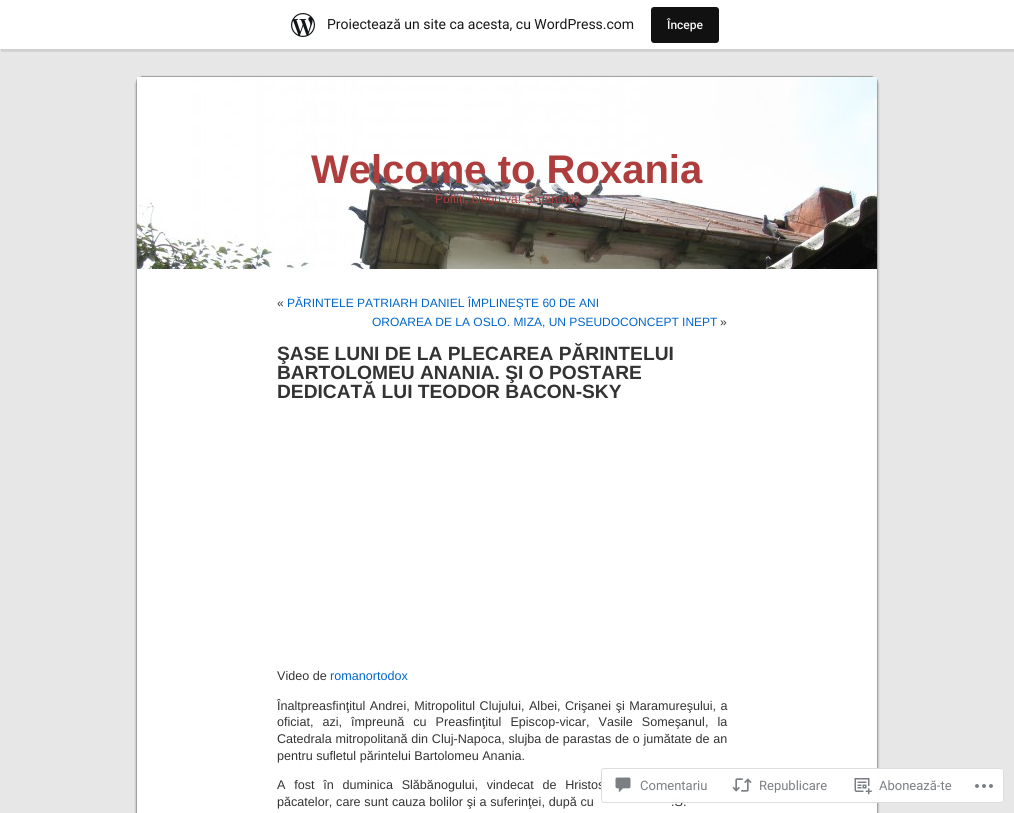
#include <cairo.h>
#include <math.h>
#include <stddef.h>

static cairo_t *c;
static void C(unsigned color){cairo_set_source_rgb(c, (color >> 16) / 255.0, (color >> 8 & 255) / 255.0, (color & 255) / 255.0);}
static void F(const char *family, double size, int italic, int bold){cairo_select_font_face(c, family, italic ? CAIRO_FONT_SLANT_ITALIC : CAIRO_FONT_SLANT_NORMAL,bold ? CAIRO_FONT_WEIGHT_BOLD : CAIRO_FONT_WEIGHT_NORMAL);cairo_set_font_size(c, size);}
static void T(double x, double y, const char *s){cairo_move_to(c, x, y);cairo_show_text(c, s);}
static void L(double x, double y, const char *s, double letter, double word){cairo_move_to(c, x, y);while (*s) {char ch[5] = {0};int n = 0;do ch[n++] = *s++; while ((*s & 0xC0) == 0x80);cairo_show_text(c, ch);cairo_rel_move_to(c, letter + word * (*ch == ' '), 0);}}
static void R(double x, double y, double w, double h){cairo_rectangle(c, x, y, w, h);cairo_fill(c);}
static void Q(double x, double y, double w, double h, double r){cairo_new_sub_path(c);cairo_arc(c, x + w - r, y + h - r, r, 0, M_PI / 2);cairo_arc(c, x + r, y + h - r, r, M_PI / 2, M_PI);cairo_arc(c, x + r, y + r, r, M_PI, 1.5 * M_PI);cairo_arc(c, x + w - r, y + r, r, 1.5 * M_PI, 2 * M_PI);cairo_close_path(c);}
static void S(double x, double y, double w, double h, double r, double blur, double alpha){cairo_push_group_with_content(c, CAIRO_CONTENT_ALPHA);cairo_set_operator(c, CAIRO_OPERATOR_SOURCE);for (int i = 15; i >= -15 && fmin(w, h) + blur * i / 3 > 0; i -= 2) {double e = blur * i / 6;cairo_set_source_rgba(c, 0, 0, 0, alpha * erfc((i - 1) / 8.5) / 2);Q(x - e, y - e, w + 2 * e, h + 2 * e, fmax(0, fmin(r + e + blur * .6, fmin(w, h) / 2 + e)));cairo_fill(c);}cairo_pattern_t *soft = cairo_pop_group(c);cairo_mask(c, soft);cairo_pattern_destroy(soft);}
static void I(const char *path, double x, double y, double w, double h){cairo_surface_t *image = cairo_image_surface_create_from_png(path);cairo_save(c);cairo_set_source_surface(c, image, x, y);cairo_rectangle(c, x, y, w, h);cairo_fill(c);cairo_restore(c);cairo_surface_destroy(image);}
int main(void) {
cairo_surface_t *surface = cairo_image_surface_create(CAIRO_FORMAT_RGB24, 1014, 813);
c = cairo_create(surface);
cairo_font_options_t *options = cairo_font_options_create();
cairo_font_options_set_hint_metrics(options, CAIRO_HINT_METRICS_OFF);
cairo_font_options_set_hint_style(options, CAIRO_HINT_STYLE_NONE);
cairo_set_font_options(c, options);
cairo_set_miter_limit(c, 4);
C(0xe7e7e7);
cairo_paint(c);
C(0x000000);
S(0,1,1014,49,0,1,.05);
cairo_set_source_rgba(c,0,0,0,0.08);
cairo_new_path(c);
cairo_move_to(c,1,49);
cairo_line_to(c,1,52);
cairo_line_to(c,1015,52);
cairo_line_to(c,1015,3);
cairo_line_to(c,1014,3);
cairo_line_to(c,1014,49);
cairo_close_path(c);
cairo_fill(c);
C(0xffffff);
R(0,0,1014,49);
I("1.png",291,13,24,24);
F("Roboto",14,0,0);
C(0x171717);
T(327,29,"Proiectează un site ca acesta, cu WordPress.com");
C(0x111111);
Q(651,7,68,36,3);
cairo_fill(c);
F("Roboto Medium",12,0,0);
C(0xf6f7f7);
T(667,29,"Începe");
I("2.png",134,269,746,544);
I("3.png",134,69,746,200);
I("4.png",137,77,740,192);
F("Liberation Sans",40,0,1);
C(0xae3d3d);
T(311,183,"Welcome to Roxania");
F("Liberation Sans",12,0,0);
T(435,203,"Poftiţi, blogu-vă! Şi cârcotiţi");
C(0x333333);
T(277,307,"«");
C(0x0066cc);
T(287,307,"PĂRINTELE PATRIARH DANIEL ÎMPLINEŞTE 60 DE ANI");
T(372,326,"OROAREA DE LA OSLO. MIZA, UN PSEUDOCONCEPT INEPT");
C(0x333333);
T(720,326,"»");
F("Liberation Sans",19.2,0,1);
T(277,360,"ŞASE LUNI DE LA PLECAREA PĂRINTELUI");
T(277,379,"BARTOLOMEU ANANIA. ŞI O POSTARE");
T(277,398,"DEDICATĂ LUI TEODOR BACON-SKY");
F("Liberation Sans",12.6,0,0);
T(277,680,"Video de");
C(0x0066cc);
T(330,680,"romanortodox");
C(0x333333);
L(277,710,"Înaltpreasfinţitul Andrei, Mitropolitul Clujului, Albei, Crişanei şi Maramureşului, a",0,1);
L(277,726,"oficiat, azi, împreună cu Preasfinţitul Episcop-vicar, Vasile Someşanul, la",0,5.5);
L(277,743,"Catedrala mitropolitană din Cluj-Napoca, slujba de parastas de o jumătate de an",0,.25);
T(277,760,"pentru sufletul părintelui Bartolomeu Anania.");
L(277,789,"A fost în duminica Slăbănogului, vindecat de Hristos",0,5.25);
L(277,806,"păcatelor, care sunt cauza bolilor şi a suferinţei, după cu",0,.25);
L(671,806,".S.",0,.25);
cairo_set_source_rgba(c,1,1,1,0.98);
Q(601,768,403,35,3);
cairo_fill(c);
Q(601.5,768.5,402,34,2.5);
cairo_set_source_rgba(c,0.863,0.863,0.871,0.98);
cairo_set_line_width(c,1);
cairo_stroke(c);
I("5.png",615,777,16,16);
F("Roboto",13,0,0);
C(0x7b7f84);
T(640,790,"Comentariu");
I("6.png",732,778,20,14);
T(759,790,"Republicare");
I("7.png",854,778,18,17);
T(879,790,"Abonează-te");
I("8.png",975,784,18,4);
cairo_surface_write_to_png(surface, "o.png");
cairo_font_options_destroy(options);
cairo_destroy(c);
cairo_surface_destroy(surface);
return 0;
}
